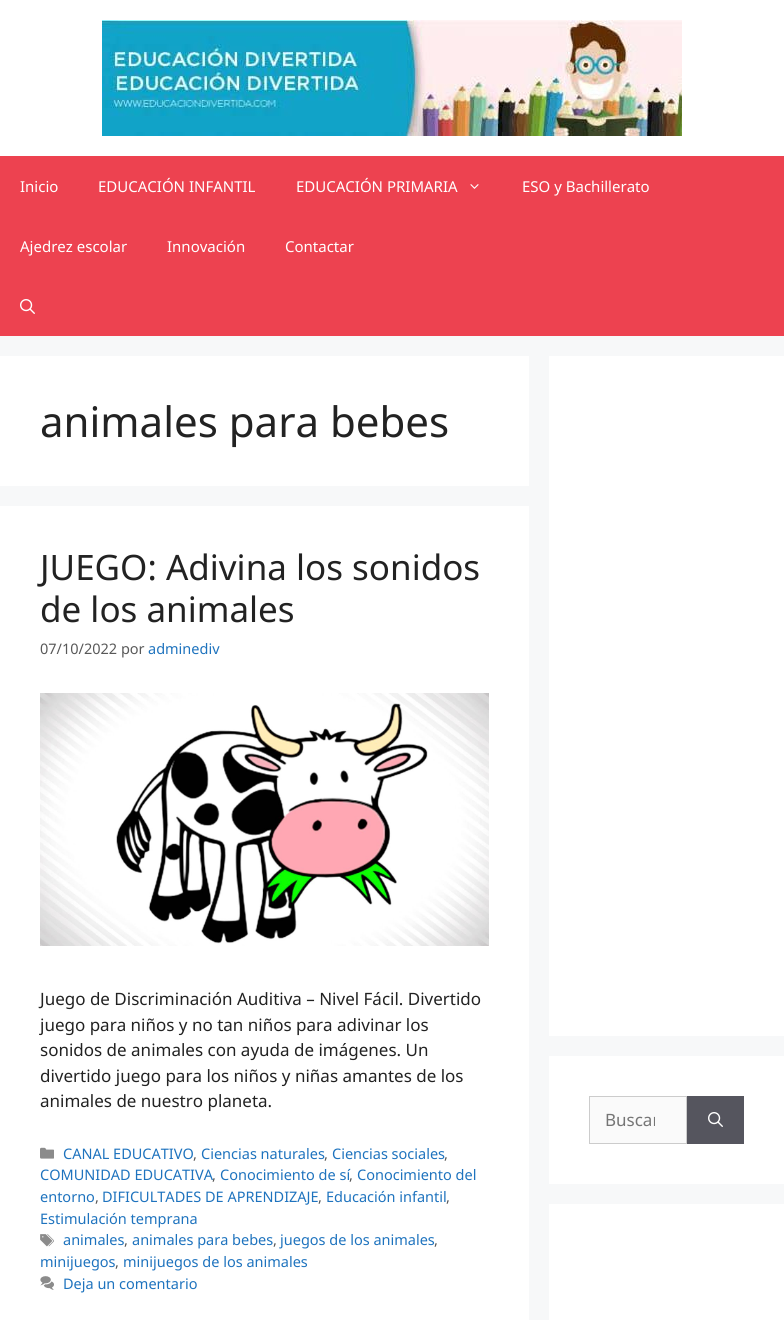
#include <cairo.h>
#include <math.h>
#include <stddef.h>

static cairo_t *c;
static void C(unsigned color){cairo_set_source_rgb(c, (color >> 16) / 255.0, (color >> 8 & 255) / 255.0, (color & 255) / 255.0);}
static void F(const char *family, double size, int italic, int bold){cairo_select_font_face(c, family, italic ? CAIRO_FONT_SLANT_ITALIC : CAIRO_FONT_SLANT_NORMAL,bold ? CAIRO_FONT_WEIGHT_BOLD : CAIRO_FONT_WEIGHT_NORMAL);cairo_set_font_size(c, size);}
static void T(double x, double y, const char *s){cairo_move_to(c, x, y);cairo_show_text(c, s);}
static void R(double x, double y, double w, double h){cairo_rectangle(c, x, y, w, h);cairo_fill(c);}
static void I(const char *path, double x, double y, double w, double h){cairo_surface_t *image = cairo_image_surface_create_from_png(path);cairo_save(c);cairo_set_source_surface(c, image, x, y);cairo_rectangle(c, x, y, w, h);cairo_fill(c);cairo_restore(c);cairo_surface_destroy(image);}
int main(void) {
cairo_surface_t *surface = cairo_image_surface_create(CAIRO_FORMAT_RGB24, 784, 1320);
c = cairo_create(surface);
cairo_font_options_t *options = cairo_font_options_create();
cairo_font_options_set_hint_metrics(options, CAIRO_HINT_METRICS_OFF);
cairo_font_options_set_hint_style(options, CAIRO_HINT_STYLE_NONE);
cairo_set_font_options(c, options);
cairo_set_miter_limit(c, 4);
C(0xf7f8f9);
cairo_paint(c);
C(0xffffff);
R(0,0,784,156);
I("1.png",102,20,580,116);
C(0xed4250);
R(0,156,784,180);
F("Noto Sans",15,0,0);
C(0xffffff);
T(20,192,"Inicio");
T(98,192,"EDUCACIÓN INFANTIL");
T(296,192,"EDUCACIÓN PRIMARIA");
I("2.png",470,184,9,5);
T(522,192,"ESO y Bachillerato");
T(20,252,"Ajedrez escolar");
T(167,252,"Innovación");
T(285,252,"Contactar");
I("3.png",20,299,15,15);
R(0,356,529,130);
F("Noto Sans",42,0,0);
C(0x222222);
T(40,437,"animales para bebes");
C(0xffffff);
R(0,506,529,814);
F("Noto Sans",35,0,0);
C(0x222222);
T(40,580,"JUEGO: Adivina los sonidos");
T(40,622,"de los animales");
F("Noto Sans",14.5,0,0);
C(0x595959);
T(40,654,"07/10/2022 por");
C(0x1e73be);
T(148,654,"adminediv");
I("4.png",40,693,449,253);
F("Noto Sans",17,0,0);
C(0x222222);
T(40,1005,"Juego de Discriminación Auditiva – Nivel Fácil. Divertido");
T(40,1031,"juego para niños y no tan niños para adivinar los");
T(40,1056,"sonidos de animales con ayuda de imágenes. Un");
T(40,1082,"divertido juego para los niños y niñas amantes de los");
T(40,1107,"animales de nuestro planeta.");
I("5.png",40,1147,14,12);
F("Noto Sans",14.5,0,0);
C(0x1e73be);
T(63,1159,"CANAL EDUCATIVO");
C(0x595959);
T(193,1159,",");
C(0x1e73be);
T(201,1159,"Ciencias naturales");
C(0x595959);
T(324,1159,",");
C(0x1e73be);
T(332,1159,"Ciencias sociales");
C(0x595959);
T(444,1159,",");
C(0x1e73be);
T(40,1180,"COMUNIDAD EDUCATIVA");
C(0x595959);
T(212,1180,",");
C(0x1e73be);
T(220,1180,"Conocimiento de sí");
C(0x595959);
T(349,1180,",");
C(0x1e73be);
T(357,1180,"Conocimiento del");
T(40,1202,"entorno");
C(0x595959);
T(95,1202,",");
C(0x1e73be);
T(102,1202,"DIFICULTADES DE APRENDIZAJE");
C(0x595959);
T(318,1202,",");
C(0x1e73be);
T(326,1202,"Educación infantil");
C(0x595959);
T(446,1202,",");
C(0x1e73be);
T(40,1224,"Estimulación temprana");
I("6.png",40,1234,14,13);
T(63,1245,"animales");
C(0x595959);
T(124,1245,",");
C(0x1e73be);
T(132,1245,"animales para bebes");
C(0x595959);
T(273,1245,",");
C(0x1e73be);
T(280,1245,"juegos de los animales");
C(0x595959);
T(434,1245,",");
C(0x1e73be);
T(40,1267,"minijuegos");
C(0x595959);
T(115,1267,",");
C(0x1e73be);
T(123,1267,"minijuegos de los animales");
I("7.png",40,1276,14,14);
T(63,1289,"Deja un comentario");
C(0xffffff);
R(549,356,235,680);
R(549,1056,235,128);
C(0xfafafa);
cairo_rectangle(c,589.5,1096.5,97,47);
cairo_fill_preserve(c);
C(0xcccccc);
cairo_set_line_width(c,1);
cairo_stroke(c);
cairo_save(c);
cairo_rectangle(c,605,1108,50,23);
cairo_clip(c);
F("Noto Sans",17,0,0);
C(0x757575);
T(605,1126,"Buscar");
cairo_restore(c);
C(0x55555e);
R(687,1096,57,48);
I("8.png",708,1112,15,15);
C(0xffffff);
R(549,1204,235,116);
cairo_surface_write_to_png(surface, "o.png");
cairo_font_options_destroy(options);
cairo_destroy(c);
cairo_surface_destroy(surface);
return 0;
}
